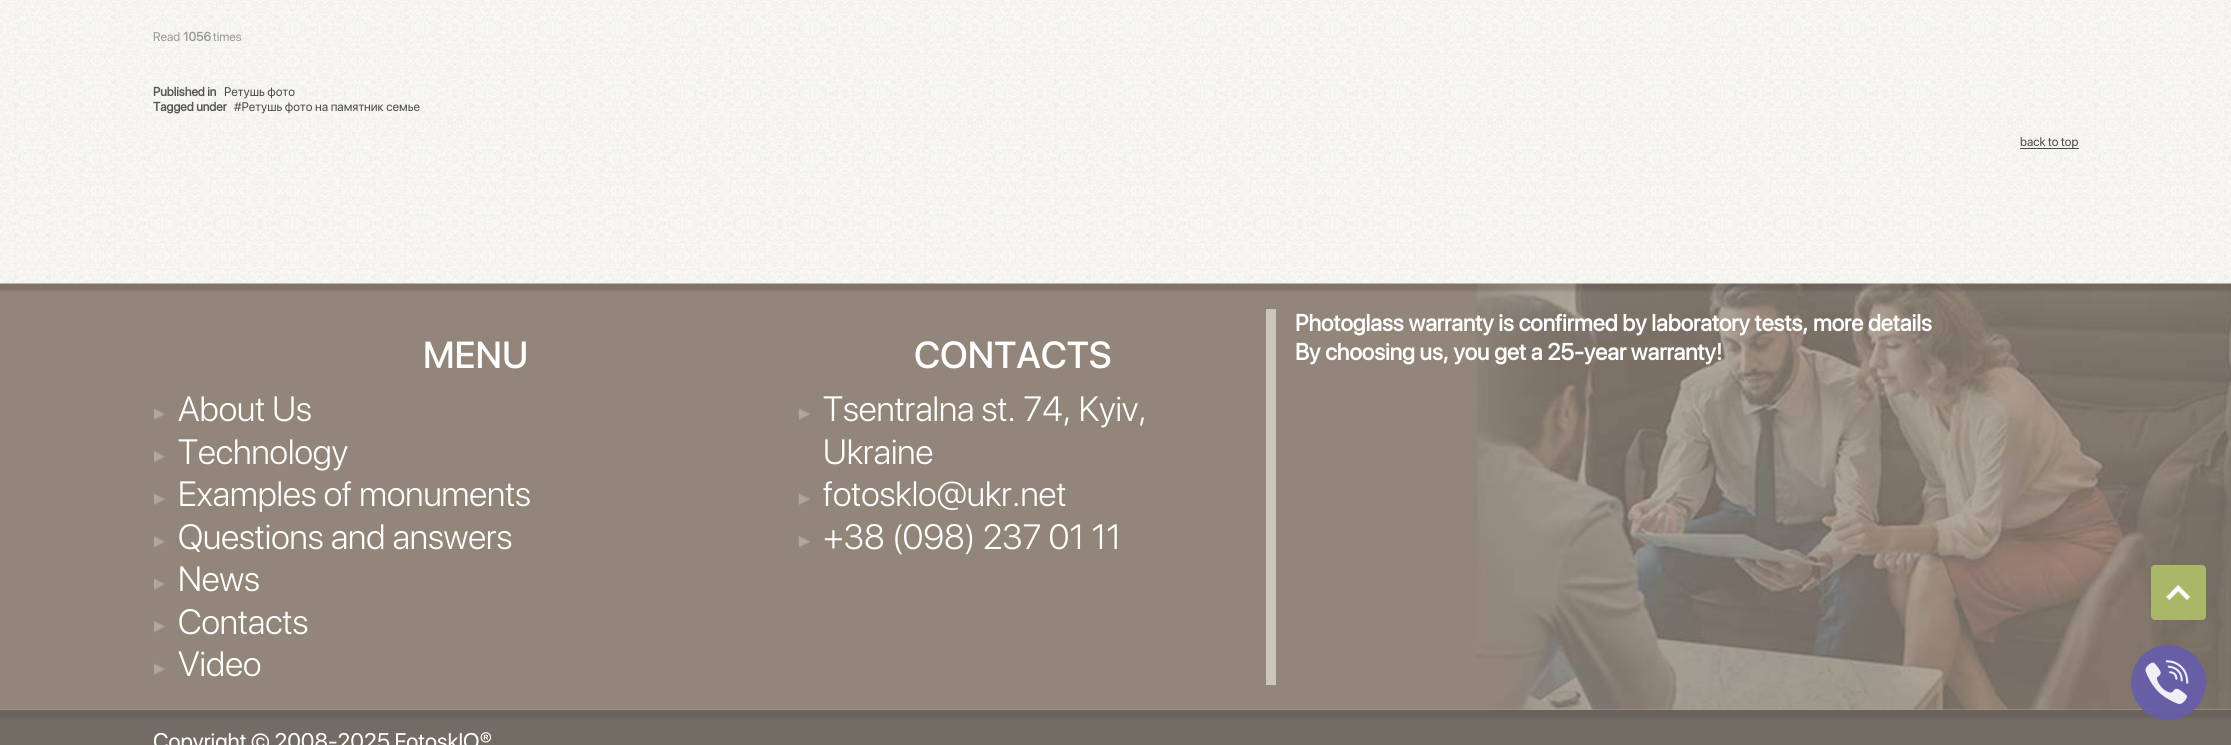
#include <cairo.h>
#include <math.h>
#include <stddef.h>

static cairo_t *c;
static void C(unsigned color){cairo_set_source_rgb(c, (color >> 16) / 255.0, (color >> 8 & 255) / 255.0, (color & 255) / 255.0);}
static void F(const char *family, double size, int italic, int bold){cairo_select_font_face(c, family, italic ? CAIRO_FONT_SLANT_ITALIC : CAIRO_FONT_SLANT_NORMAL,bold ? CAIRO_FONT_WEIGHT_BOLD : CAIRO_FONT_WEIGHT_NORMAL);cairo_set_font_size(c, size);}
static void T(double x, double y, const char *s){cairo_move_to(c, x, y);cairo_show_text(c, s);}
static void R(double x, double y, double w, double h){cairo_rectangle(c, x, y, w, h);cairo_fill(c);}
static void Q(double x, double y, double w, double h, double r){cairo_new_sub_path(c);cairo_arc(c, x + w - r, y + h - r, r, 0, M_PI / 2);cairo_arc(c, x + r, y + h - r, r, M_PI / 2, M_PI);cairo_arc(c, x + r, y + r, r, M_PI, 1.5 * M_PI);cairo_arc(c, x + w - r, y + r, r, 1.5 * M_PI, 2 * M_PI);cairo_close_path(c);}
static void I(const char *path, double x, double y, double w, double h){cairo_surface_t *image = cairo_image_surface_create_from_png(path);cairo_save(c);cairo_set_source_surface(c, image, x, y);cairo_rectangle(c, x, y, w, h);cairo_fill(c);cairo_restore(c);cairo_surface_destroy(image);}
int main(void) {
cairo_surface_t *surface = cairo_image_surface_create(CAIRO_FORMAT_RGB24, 2231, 745);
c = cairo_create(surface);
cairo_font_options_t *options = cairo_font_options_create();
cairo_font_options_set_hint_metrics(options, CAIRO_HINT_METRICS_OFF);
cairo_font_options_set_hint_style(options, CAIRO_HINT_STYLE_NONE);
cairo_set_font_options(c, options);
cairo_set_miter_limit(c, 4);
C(0xffffff);
cairo_paint(c);
I("1.png",0,0,2231,284);
F("SF Pro Display",12.5,0,0);
C(0x999999);
T(153,41,"Read");
F("SF Pro Display",12.5,0,1);
T(183,41,"1056");
F("SF Pro Display",12.5,0,0);
T(213,41,"times");
F("SF Pro Display",12.5,0,1);
C(0x555555);
T(153,96,"Published in");
F("SF Pro Display",12.5,0,0);
C(0x4b4b4b);
T(224,96,"Ретушь фото");
F("SF Pro Display",12.5,0,1);
C(0x555555);
T(153,111,"Tagged under");
F("SF Pro Display",12.5,0,0);
C(0x4b4b4b);
T(234,111,"#Ретушь фото на памятник семье");
R(2020,148,59,1);
T(2020,146,"back to top");
I("2.png",0,283,2231,427);
C(0xccc6b9);
R(1266,309,10,376);
F("SF Pro Display Medium",37.5,0,0);
C(0xffffff);
T(423,368,"MENU");
I("3.png",154,408,11,12);
F("SF Pro Display Light",35,0,0);
T(178,421,"About Us");
I("4.png",154,451,11,12);
T(178,464,"Technology");
I("3.png",154,493,11,12);
T(178,506,"Examples of monuments");
I("4.png",154,536,11,12);
T(178,549,"Questions and answers");
I("3.png",154,578,11,12);
T(178,591,"News");
I("4.png",154,621,11,12);
T(178,634,"Contacts");
I("3.png",154,663,11,12);
T(178,676,"Video");
F("SF Pro Display Medium",37.5,0,0);
T(914,368,"CONTACTS");
I("5.png",798,408,12,12);
F("SF Pro Display Light",35,0,0);
T(823,421,"Tsentralna st. 74, Kyiv,");
T(823,464,"Ukraine");
I("5.png",798,493,12,12);
T(823,506,"fotosklo@ukr.net");
I("6.png",798,536,12,12);
T(823,549,"+38 (098) 237 01 11");
F("SF Pro Display",23.3,0,1);
T(1295,331,"Photoglass warranty is confirmed by laboratory tests, more details");
T(1295,360,"By choosing us, you get a 25-year warranty!");
I("7.png",0,709,2231,36);
cairo_set_source_rgba(c,0.4,0.361,0.675,0.9);
cairo_arc(c,2168.5,682.5,37.5,0,2 * M_PI);
cairo_fill(c);
I("8.png",2145,660,44,45);
F("SF Pro Display",22.5,0,0);
C(0xffffff);
T(153,749,"Copyright © 2008-2025 FotosklO®");
C(0xaab768);
Q(2151,565,55,55,4);
cairo_fill(c);
I("9.png",2166,584,25,17);
cairo_surface_write_to_png(surface, "o.png");
cairo_font_options_destroy(options);
cairo_destroy(c);
cairo_surface_destroy(surface);
return 0;
}
